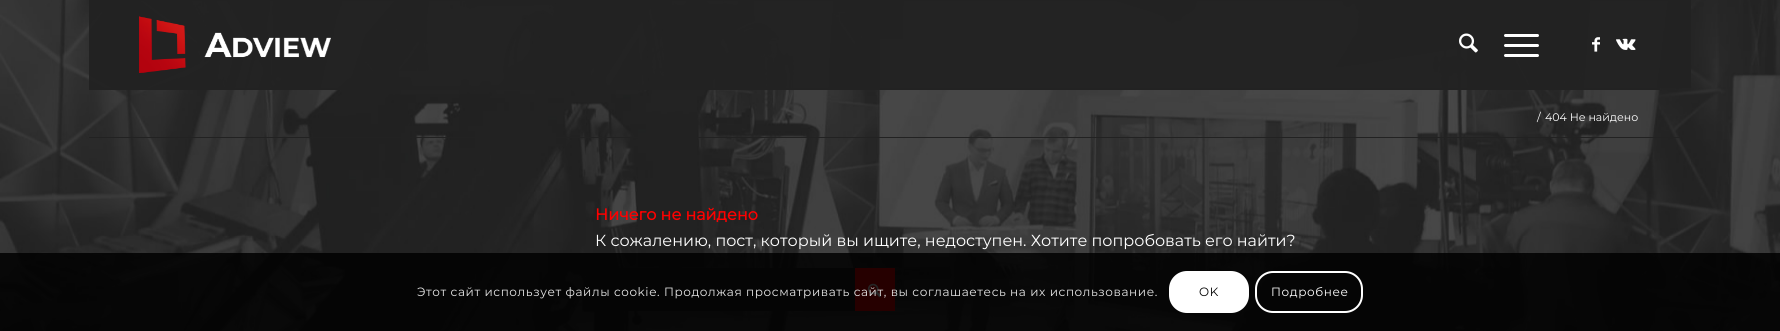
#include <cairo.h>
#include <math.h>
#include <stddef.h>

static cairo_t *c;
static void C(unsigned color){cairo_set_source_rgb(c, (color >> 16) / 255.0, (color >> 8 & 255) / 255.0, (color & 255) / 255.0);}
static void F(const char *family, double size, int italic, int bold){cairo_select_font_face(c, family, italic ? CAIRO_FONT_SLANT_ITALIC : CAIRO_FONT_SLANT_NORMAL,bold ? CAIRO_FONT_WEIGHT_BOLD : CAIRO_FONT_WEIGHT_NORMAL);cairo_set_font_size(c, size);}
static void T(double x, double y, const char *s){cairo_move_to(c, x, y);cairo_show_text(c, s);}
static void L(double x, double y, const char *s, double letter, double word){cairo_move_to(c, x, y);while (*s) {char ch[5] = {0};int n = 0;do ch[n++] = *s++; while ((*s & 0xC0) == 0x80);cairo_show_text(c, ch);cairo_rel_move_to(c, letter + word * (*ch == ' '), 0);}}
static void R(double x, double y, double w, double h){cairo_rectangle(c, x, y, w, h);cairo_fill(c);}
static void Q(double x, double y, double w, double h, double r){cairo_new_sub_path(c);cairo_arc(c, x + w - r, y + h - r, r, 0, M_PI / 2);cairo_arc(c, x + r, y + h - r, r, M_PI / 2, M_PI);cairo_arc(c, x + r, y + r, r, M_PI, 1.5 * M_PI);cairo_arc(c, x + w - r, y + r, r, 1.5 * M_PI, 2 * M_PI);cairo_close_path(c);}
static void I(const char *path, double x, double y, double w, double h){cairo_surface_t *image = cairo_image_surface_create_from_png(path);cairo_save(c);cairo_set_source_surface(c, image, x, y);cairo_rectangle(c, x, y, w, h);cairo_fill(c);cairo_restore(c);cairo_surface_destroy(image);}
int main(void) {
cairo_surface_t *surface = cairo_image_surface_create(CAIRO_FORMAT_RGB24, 1780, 331);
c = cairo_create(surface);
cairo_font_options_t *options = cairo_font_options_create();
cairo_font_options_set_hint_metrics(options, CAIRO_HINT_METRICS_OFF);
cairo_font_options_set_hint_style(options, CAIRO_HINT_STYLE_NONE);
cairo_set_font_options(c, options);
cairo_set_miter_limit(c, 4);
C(0xffffff);
cairo_paint(c);
I("1.png",0,0,1780,331);
C(0x222222);
R(89,0,1602,1);
cairo_set_source_rgba(c,0.133,0.133,0.133,0.95);
R(89,1,1602,87);
I("2.png",139,16,192,57);
I("3.png",1459,33,19,20);
C(0xffffff);
Q(1504,44,35,3,1.5);
cairo_fill(c);
Q(1504,34,35,3,1.5);
cairo_fill(c);
Q(1504,54,35,3,1.5);
cairo_fill(c);
I("4.png",1592,37,8,15);
I("5.png",1616,38,20,12);
C(0x222222);
R(89,88,1571,2);
F("Montserrat Thin",11,0,0);
C(0xffffff);
T(1537,121,"/");
T(1545,121,"404 Не найдено");
C(0x222222);
R(89,137,1591,1);
F("Montserrat",16,0,1);
C(0xff0000);
T(595,220,"Ничего не найдено");
F("Montserrat Thin",16,0,0);
C(0xffffff);
T(595,246,"К сожалению, пост, который вы ищите, недоступен. Хотите попробовать его найти?");
C(0x222222);
R(595,268,260,43);
C(0xff0000);
R(855,268,40,43);
I("6.png",867,283,15,15);
cairo_set_source_rgba(c,0,0,0,0.85);
R(0,253,1780,78);
F("Montserrat Thin",12,0,0);
C(0xe6e6e6);
L(417,296,"Этот сайт использует файлы cookie. Продолжая просматривать сайт, вы соглашаетесь на их использование.",.6,0);
C(0xffffff);
Q(1169,271,80,42,18);
cairo_fill(c);
C(0x000000);
L(1199,296,"OK",.6,0);
Q(1256,272,106,40,17);
C(0xffffff);
cairo_stroke(c);
L(1271,296,"Подробнее",.6,0);
cairo_surface_write_to_png(surface, "o.png");
cairo_font_options_destroy(options);
cairo_destroy(c);
cairo_surface_destroy(surface);
return 0;
}
